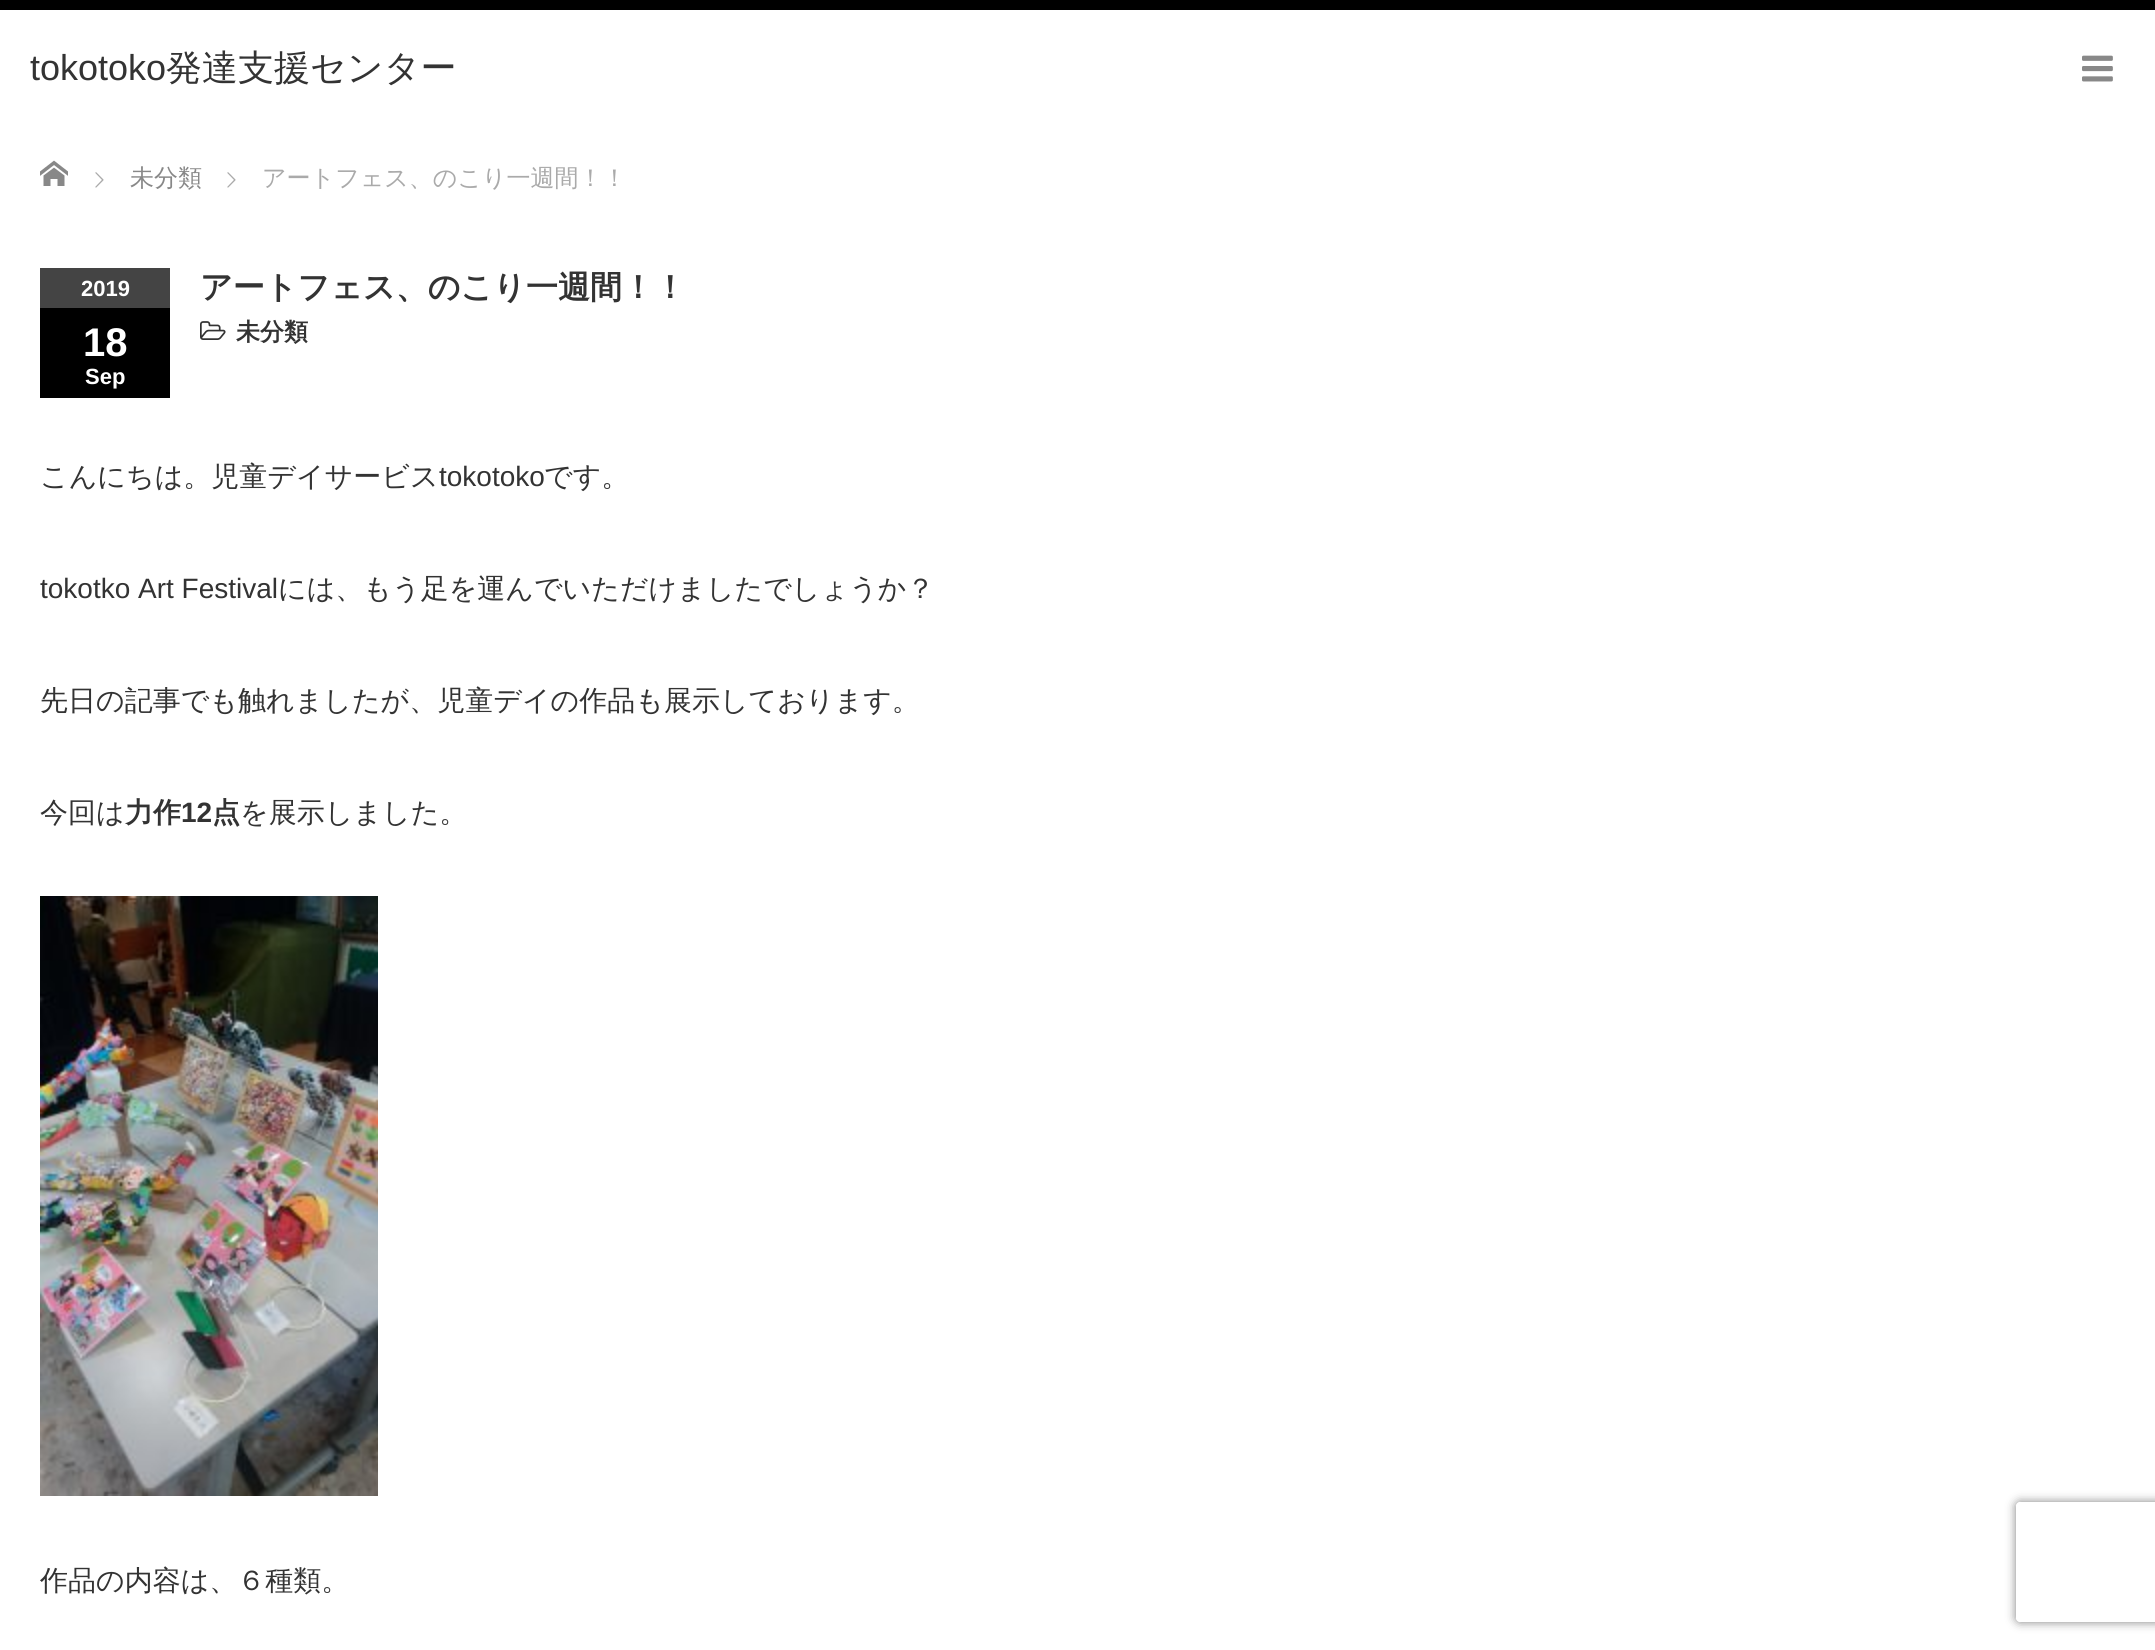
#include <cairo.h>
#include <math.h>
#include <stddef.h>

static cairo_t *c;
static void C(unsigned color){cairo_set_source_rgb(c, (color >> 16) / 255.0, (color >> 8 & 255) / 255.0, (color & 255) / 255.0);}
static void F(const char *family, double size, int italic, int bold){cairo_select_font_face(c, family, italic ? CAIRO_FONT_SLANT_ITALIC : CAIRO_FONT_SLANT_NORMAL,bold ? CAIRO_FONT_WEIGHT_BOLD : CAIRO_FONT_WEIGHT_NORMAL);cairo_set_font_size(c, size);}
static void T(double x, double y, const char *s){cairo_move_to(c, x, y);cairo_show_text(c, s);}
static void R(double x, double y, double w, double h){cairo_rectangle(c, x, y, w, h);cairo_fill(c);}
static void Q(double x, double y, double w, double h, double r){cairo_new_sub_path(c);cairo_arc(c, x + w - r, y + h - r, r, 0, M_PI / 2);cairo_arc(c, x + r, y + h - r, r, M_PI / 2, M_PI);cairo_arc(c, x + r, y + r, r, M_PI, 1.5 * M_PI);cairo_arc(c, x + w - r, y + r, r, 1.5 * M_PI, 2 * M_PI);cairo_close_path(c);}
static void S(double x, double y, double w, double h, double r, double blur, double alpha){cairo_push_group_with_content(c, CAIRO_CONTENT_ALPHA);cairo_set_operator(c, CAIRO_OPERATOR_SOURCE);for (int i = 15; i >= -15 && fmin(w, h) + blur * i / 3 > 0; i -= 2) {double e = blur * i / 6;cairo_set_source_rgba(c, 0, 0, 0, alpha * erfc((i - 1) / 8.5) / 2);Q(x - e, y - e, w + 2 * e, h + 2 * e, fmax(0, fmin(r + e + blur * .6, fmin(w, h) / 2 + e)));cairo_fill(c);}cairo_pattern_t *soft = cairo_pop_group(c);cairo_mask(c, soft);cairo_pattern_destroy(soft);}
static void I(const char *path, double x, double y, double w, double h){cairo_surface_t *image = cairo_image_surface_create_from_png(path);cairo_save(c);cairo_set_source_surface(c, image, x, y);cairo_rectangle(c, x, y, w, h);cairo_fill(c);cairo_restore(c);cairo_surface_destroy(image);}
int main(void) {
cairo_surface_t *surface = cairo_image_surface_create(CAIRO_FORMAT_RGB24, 2155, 1650);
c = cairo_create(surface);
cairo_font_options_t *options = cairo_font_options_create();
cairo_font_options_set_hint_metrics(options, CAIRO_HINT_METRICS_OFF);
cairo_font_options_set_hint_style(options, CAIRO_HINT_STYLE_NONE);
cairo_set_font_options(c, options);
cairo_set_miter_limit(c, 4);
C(0xffffff);
cairo_paint(c);
C(0x000000);
R(0,0,2155,10);
F("Liberation Sans",36,0,0);
C(0x333333);
T(30,80,"tokotoko");
F("WenQuanYi Zen Hei Medium",36,0,0);
T(166,80,"発達支援センター");
I("1.png",2082,55,31,27);
I("2.png",40,160,28,26);
I("3.png",95,172,9,16);
F("WenQuanYi Zen Hei Medium",24,0,0);
C(0x888888);
T(130,186,"未分類");
I("3.png",227,172,9,16);
C(0xaaaaaa);
T(262,186,"アートフェス、のこり一週間！！");
F("WenQuanYi Zen Hei",32,0,1);
C(0x333333);
T(200,298,"アートフェス、のこり一週間！！");
I("4.png",200,321,26,19);
F("WenQuanYi Zen Hei",24,0,1);
T(236,340,"未分類");
F("WenQuanYi Zen Hei Medium",28,0,0);
T(40,486,"こんにちは。児童デイサービス");
F("Liberation Sans",28,0,0);
T(439,486,"tokotoko");
F("WenQuanYi Zen Hei Medium",28,0,0);
T(544,486,"です。");
F("Liberation Sans",28,0,0);
T(40,598,"tokotko Art Festival");
F("WenQuanYi Zen Hei Medium",28,0,0);
T(278,598,"には、もう足を運んでいただけましたでしょうか？");
T(40,710,"先日の記事でも触れましたが、児童デイの作品も展示しております。");
T(40,822,"今回は");
F("WenQuanYi Zen Hei",28,0,1);
T(125,822,"力作");
F("Liberation Sans",28,0,1);
T(181,822,"12");
F("WenQuanYi Zen Hei",28,0,1);
T(212,822,"点");
F("WenQuanYi Zen Hei Medium",28,0,0);
T(240,822,"を展示しました。");
I("5.png",40,896,338,600);
T(40,1590,"作品の内容は、６種類。");
C(0x000000);
R(40,308,130,90);
C(0x444444);
R(40,268,130,40);
F("Liberation Sans",22,0,1);
C(0xffffff);
T(81,296,"2019");
F("Liberation Sans",40,0,1);
T(83,356,"18");
F("Liberation Sans",22,0,1);
T(85,384,"Sep");
cairo_save(c);
cairo_set_fill_rule(c,CAIRO_FILL_RULE_EVEN_ODD);
cairo_new_path(c);
cairo_move_to(c,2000,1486);
cairo_line_to(c,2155,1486);
cairo_line_to(c,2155,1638);
cairo_line_to(c,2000,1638);
cairo_close_path(c);
cairo_move_to(c,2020,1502);
cairo_line_to(c,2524,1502);
cairo_curve_to(c,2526,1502,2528,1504,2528,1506);
cairo_line_to(c,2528,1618);
cairo_curve_to(c,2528,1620,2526,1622,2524,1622);
cairo_line_to(c,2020,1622);
cairo_curve_to(c,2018,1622,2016,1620,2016,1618);
cairo_line_to(c,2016,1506);
cairo_curve_to(c,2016,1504,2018,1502,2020,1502);
cairo_close_path(c);
cairo_clip(c);
C(0x808080);
S(2016,1502,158,120,4,5,1);
cairo_restore(c);
cairo_surface_write_to_png(surface, "o.png");
cairo_font_options_destroy(options);
cairo_destroy(c);
cairo_surface_destroy(surface);
return 0;
}
